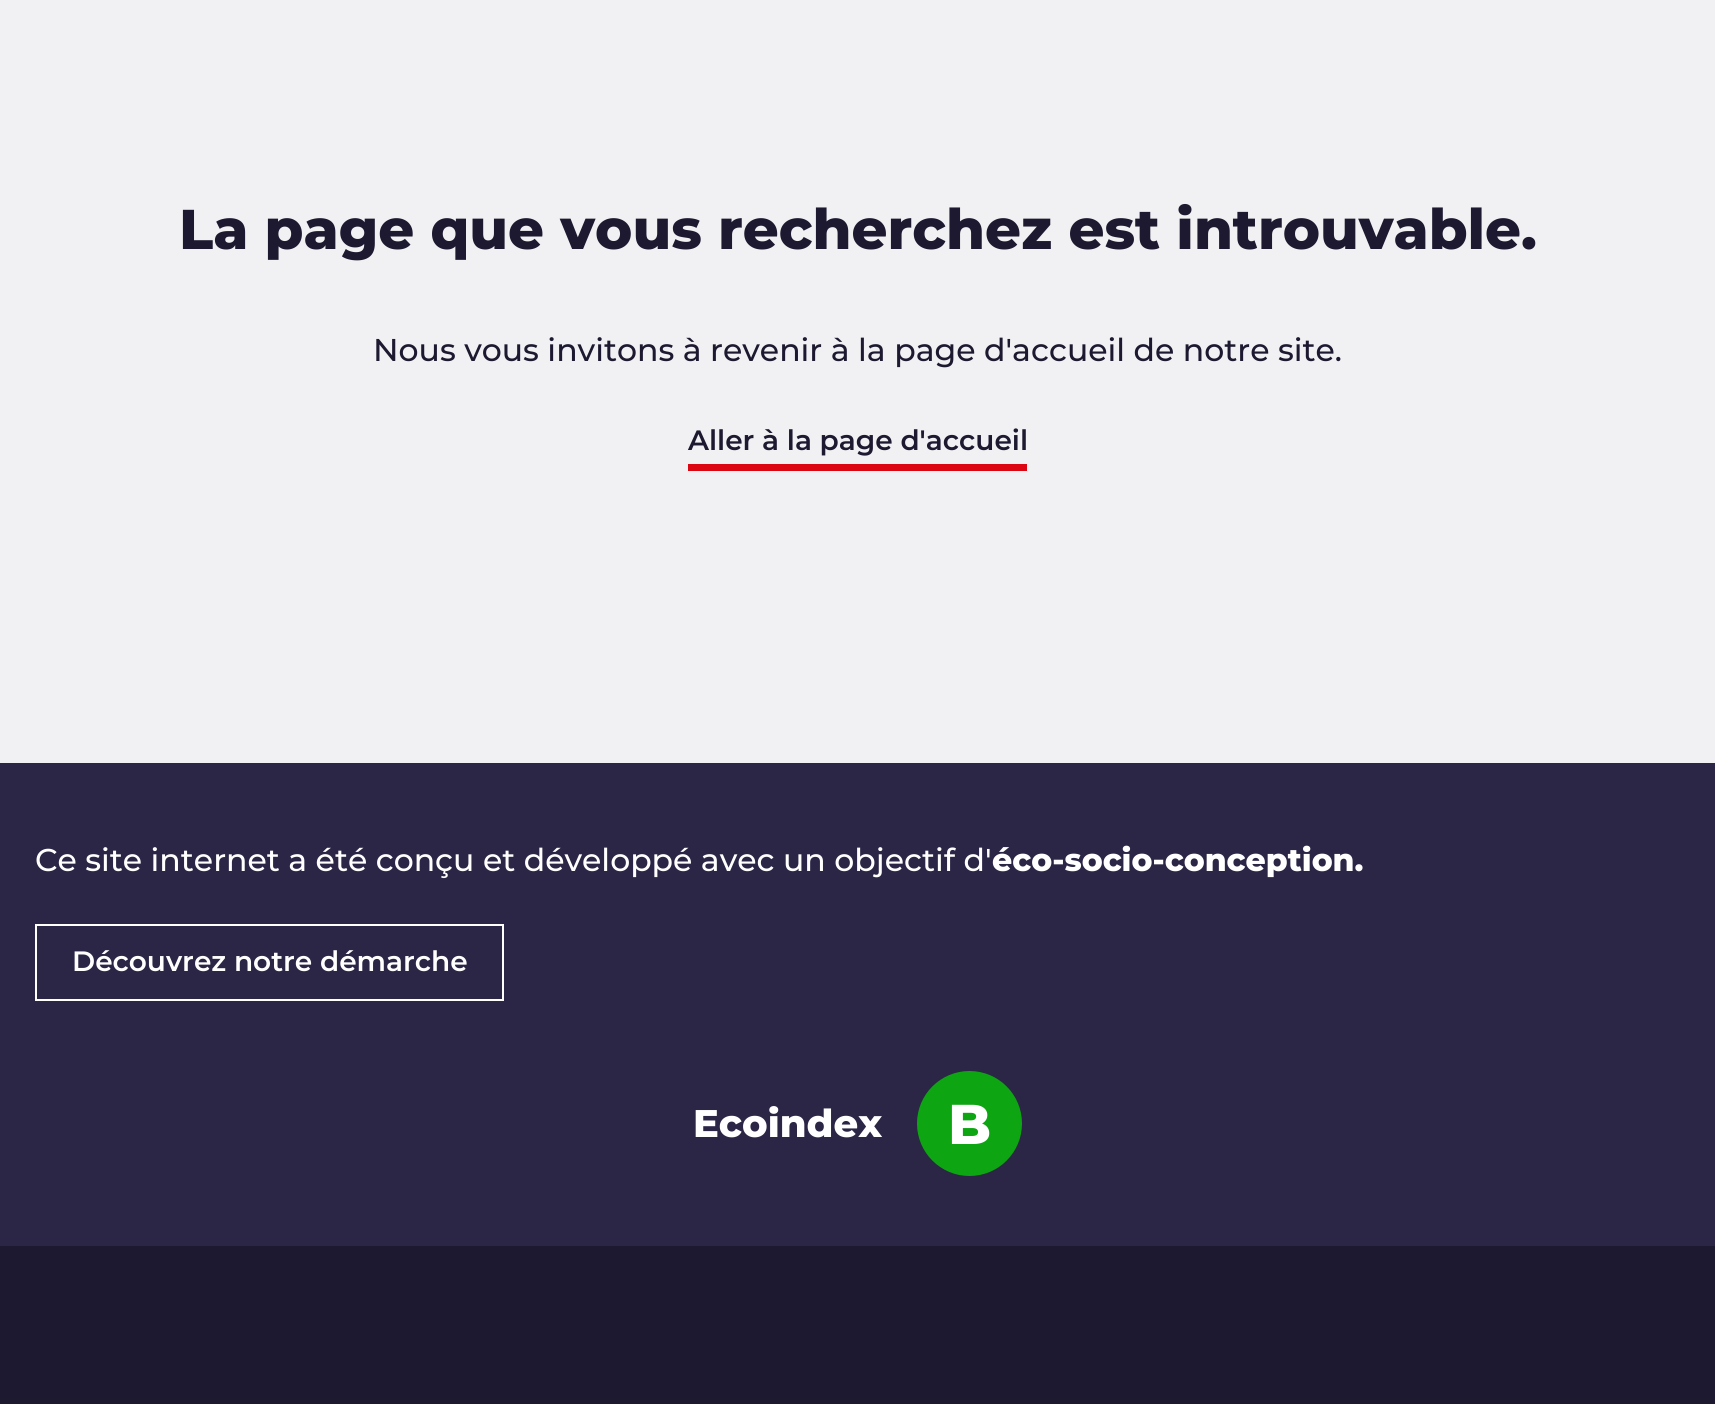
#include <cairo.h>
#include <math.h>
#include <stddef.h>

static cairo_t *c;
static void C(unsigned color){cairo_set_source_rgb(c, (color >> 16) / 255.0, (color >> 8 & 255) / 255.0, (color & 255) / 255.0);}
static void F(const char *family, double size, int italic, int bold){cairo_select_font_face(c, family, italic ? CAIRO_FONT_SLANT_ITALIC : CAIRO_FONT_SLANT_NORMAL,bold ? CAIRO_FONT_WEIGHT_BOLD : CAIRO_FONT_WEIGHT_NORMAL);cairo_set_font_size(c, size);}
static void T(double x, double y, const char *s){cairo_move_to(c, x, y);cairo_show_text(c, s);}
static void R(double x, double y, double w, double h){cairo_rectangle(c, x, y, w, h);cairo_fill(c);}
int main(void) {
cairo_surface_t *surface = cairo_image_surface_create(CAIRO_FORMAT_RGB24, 1715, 1404);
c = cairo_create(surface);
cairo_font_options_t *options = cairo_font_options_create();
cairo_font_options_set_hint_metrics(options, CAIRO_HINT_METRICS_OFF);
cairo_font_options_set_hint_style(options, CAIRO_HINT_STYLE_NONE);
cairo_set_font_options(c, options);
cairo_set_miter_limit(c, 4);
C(0x2b2546);
cairo_paint(c);
C(0xf1f1f3);
R(0,0,1715,763);
F("Montserrat ExtraBold",56,0,0);
C(0x1d1930);
T(179,249,"La page que vous recherchez est introuvable.");
F("Montserrat Medium",31.5,0,0);
T(373,361,"Nous vous invitons à revenir à la page d'accueil de notre site.");
F("Montserrat SemiBold",28,0,0);
T(688,450,"Aller à la page d'accueil");
C(0xdb0612);
R(688,464,339,7);
F("Montserrat Medium",31.5,0,0);
C(0xffffff);
T(35,871,"Ce site internet a été conçu et développé avec un objectif d'");
F("Montserrat ExtraBold",31.5,0,0);
T(992,871,"éco-socio-conception.");
cairo_rectangle(c,36,925,467,75);
cairo_stroke(c);
F("Montserrat SemiBold",28,0,0);
T(72,971,"Découvrez notre démarche");
F("Montserrat ExtraBold",38.5,0,0);
T(693,1137,"Ecoindex");
C(0x0da511);
cairo_new_path(c);
cairo_arc(c,969.5,1123.5,52.5,0,2 * M_PI);
cairo_fill(c);
F("Montserrat ExtraBold",56,0,0);
C(0xffffff);
T(948,1144,"B");
C(0x1d1930);
R(0,1246,1715,158);
cairo_surface_write_to_png(surface, "o.png");
cairo_font_options_destroy(options);
cairo_destroy(c);
cairo_surface_destroy(surface);
return 0;
}
